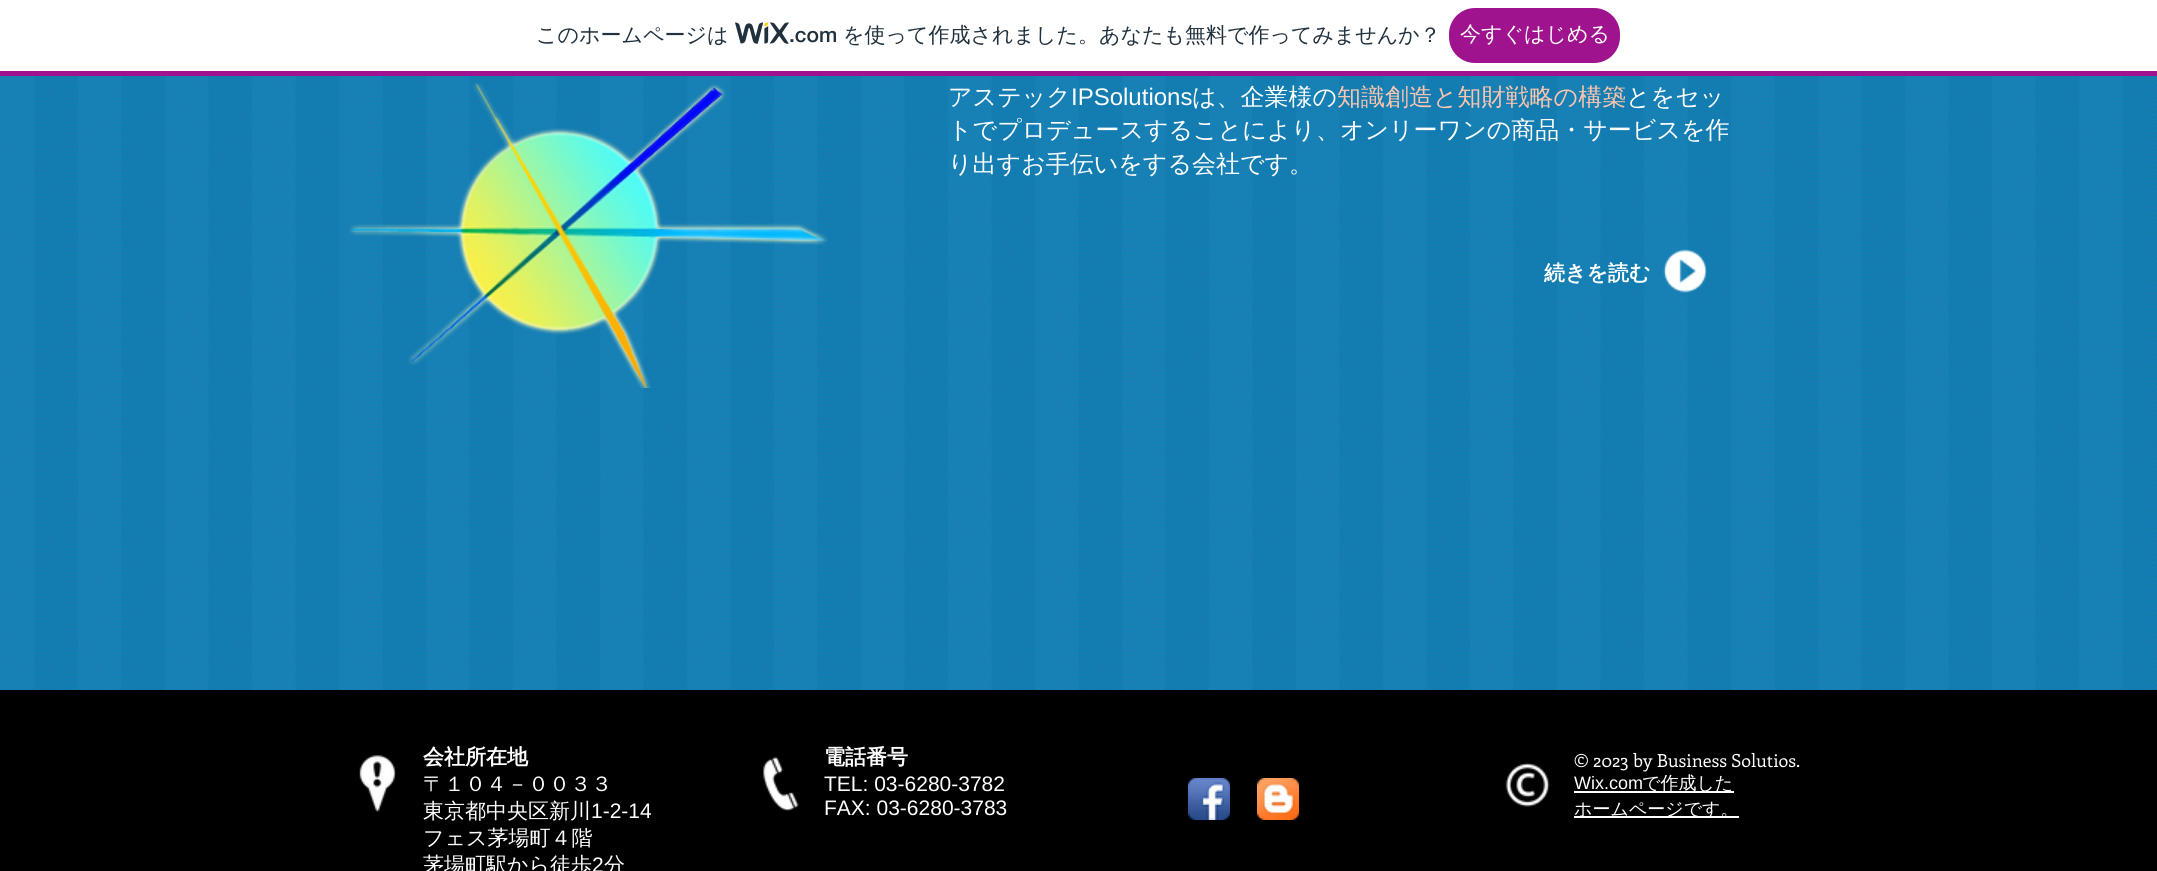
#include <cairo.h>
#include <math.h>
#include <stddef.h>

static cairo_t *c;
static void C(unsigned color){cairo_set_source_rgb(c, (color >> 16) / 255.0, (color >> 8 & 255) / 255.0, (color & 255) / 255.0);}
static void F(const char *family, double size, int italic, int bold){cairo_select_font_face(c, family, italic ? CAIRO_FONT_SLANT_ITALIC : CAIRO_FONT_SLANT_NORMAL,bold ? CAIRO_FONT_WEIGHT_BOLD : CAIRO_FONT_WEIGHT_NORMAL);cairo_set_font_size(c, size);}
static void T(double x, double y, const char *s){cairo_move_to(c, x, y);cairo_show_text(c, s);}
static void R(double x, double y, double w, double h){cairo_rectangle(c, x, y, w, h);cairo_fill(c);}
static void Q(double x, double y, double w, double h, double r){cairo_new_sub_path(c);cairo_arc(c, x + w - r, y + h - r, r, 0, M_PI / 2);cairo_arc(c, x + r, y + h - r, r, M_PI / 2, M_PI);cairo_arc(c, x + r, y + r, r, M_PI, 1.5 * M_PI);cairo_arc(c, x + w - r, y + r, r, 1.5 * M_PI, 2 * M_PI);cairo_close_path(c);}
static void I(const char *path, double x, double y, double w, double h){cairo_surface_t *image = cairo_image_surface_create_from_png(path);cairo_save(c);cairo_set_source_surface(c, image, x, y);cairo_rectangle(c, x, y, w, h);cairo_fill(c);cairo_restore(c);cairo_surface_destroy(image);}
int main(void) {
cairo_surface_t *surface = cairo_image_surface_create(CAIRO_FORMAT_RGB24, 2157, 871);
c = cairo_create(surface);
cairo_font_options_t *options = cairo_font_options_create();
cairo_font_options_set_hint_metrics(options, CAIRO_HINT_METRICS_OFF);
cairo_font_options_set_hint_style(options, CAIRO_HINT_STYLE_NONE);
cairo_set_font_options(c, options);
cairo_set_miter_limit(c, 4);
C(0x0088cb);
cairo_paint(c);
C(0xffffff);
R(0,0,2157,71);
C(0xa0138e);
R(0,71,2157,5);
F("WenQuanYi Zen Hei Medium",21,0,0);
C(0x20303c);
T(536,42,"このホームページは");
I("1.png",735,22,54,22);
F("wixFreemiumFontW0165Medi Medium",21,0,0);
T(789,42,".com");
F("WenQuanYi Zen Hei Medium",21,0,0);
T(843,42,"を使って作成されました。あなたも無料で作ってみませんか？");
C(0xa0138e);
Q(1450,9,169,53,25);
cairo_fill_preserve(c);
cairo_stroke(c);
C(0xffffff);
T(1460,41,"今すぐはじめる");
I("2.png",0,76,2157,614);
I("3.png",349,82,479,306);
F("WenQuanYi Zen Hei Medium",24,0,0);
T(948,105,"アステック");
F("Liberation Sans",24,0,0);
T(1071,105,"IPSolutions");
F("WenQuanYi Zen Hei Medium",24,0,0);
T(1192,105,"は、企業様の");
C(0xfdc5ad);
T(1337,105,"知識創造と知財戦略の構築");
C(0xffffff);
T(1626,105,"とをセッ");
T(948,138,"トでプロデュースすることにより、オンリーワンの商品・サービスを作");
T(948,172,"り出すお手伝いをする会社です。");
F("WenQuanYi Zen Hei",21,0,1);
T(1544,280,"続きを読む");
I("4.png",1663,249,44,44);
C(0x000000);
R(0,690,2157,181);
I("5.png",359,755,37,57);
C(0xffffff);
T(423,764,"会社所在地");
F("WenQuanYi Zen Hei Medium",21,0,0);
T(423,791,"〒１０４－００３３");
T(423,818,"東京都中央区新川");
F("Liberation Sans",21,0,0);
T(591,818,"1-2-14");
F("WenQuanYi Zen Hei Medium",21,0,0);
T(423,845,"フェス茅場町４階");
T(423,872,"茅場町駅から徒歩");
F("Liberation Sans",21,0,0);
T(592,872,"2");
F("WenQuanYi Zen Hei Medium",21,0,0);
T(604,872,"分");
I("6.png",763,756,36,55);
F("WenQuanYi Zen Hei",21,0,1);
T(824,764,"電話番号");
F("Liberation Sans",21,0,0);
T(824,791,"TEL: 03-6280-3782");
T(824,815,"FAX: 03-6280-3783");
I("7.png",1188,778,42,42);
I("8.png",1257,778,42,42);
I("9.png",1505,763,45,44);
F("Enriqueta",18,0,0);
T(1574,767,"© 2023 by Business Solutios.");
F("Liberation Sans",18,0,0);
T(1574,789,"Wix.com");
R(1574,791,160,2);
F("WenQuanYi Zen Hei Medium",18,0,0);
T(1642,789,"で作成した");
R(1574,816,165,2);
T(1574,815,"ホームページです。");
cairo_surface_write_to_png(surface, "o.png");
cairo_font_options_destroy(options);
cairo_destroy(c);
cairo_surface_destroy(surface);
return 0;
}
